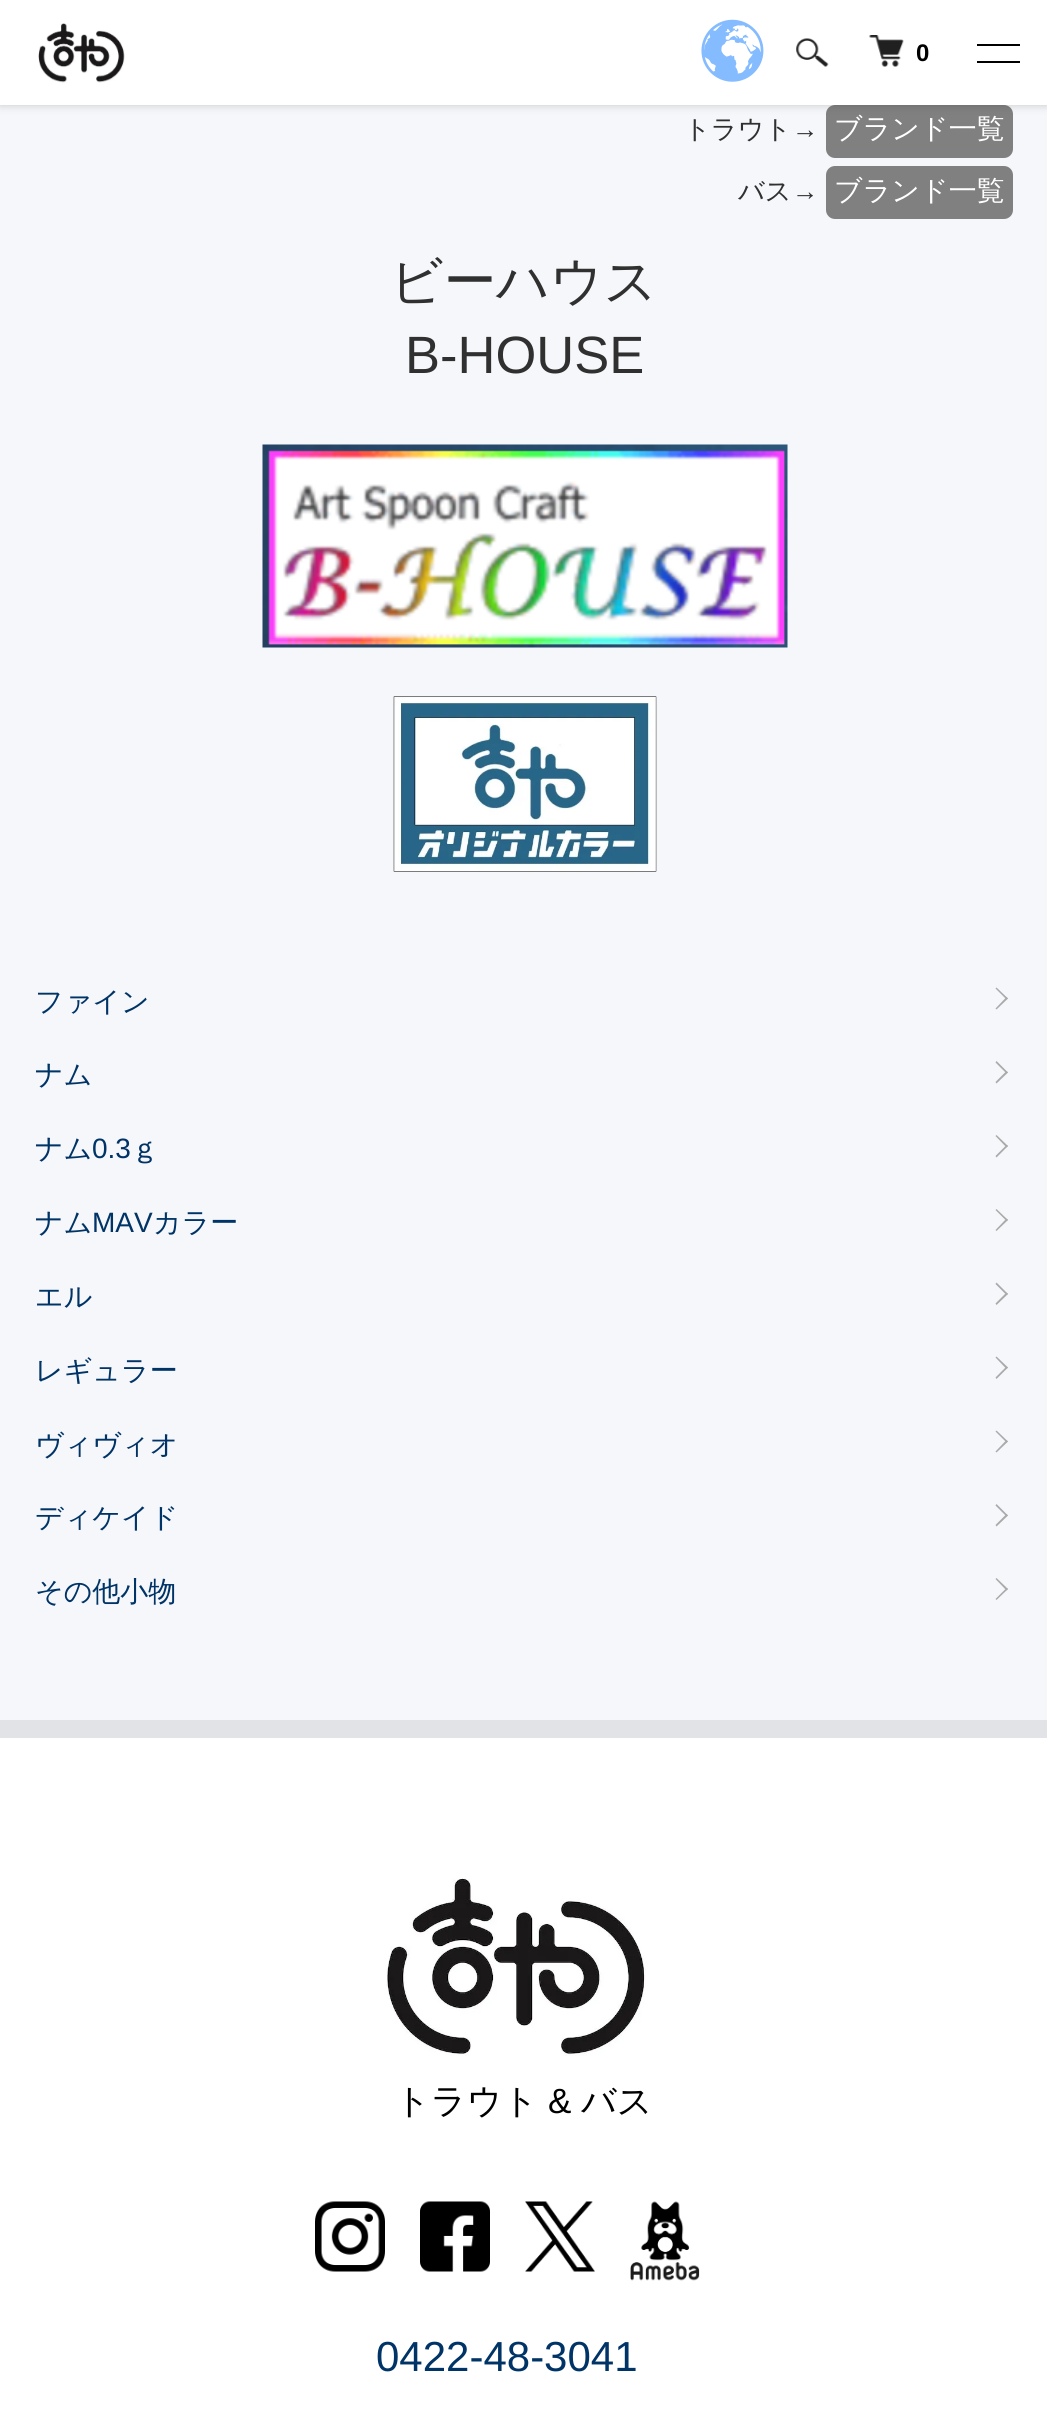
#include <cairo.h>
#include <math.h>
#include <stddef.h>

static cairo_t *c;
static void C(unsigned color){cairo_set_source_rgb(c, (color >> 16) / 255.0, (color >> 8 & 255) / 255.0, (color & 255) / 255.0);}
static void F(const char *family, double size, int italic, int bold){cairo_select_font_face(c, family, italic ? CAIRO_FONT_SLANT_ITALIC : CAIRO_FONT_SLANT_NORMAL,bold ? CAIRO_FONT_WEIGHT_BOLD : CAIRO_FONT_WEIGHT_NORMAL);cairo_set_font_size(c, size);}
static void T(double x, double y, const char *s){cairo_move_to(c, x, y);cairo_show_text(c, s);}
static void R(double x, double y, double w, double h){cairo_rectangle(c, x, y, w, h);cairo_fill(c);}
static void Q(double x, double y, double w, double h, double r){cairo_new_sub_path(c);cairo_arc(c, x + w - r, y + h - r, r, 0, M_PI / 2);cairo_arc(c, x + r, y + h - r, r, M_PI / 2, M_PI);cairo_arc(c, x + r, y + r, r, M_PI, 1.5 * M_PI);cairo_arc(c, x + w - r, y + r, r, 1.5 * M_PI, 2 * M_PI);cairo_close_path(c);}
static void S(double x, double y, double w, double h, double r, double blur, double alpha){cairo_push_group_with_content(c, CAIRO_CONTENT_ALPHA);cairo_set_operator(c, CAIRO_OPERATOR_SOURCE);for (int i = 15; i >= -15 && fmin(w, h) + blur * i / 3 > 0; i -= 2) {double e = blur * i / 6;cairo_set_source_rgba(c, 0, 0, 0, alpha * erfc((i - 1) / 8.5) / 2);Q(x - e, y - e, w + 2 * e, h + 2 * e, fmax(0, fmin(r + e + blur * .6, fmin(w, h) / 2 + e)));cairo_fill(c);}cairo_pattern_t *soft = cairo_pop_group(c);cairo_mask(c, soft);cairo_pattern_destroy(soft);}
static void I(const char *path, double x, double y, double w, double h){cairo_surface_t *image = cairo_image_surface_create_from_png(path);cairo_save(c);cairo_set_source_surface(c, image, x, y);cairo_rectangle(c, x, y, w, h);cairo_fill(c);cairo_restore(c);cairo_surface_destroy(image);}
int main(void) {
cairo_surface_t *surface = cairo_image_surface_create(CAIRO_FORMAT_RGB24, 1047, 2409);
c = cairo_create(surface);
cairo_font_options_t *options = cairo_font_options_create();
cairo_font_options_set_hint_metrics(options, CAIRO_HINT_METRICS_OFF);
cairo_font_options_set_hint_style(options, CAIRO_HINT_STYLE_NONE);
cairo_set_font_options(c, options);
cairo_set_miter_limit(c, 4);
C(0xf5f7fa);
cairo_paint(c);
C(0x808080);
Q(826,105,187,53,9);
cairo_fill(c);
C(0x000000);
S(0,0,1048,105,0,4.5,.2);
C(0xffffff);
R(0,0,1047,105);
I("1.png",38,23,87,60);
I("2.png",701,19,63,63);
I("3.png",796,38,33,29);
I("4.png",869,35,35,32);
F("Liberation Sans",24,0,1);
C(0x000000);
T(916,61,"0");
R(977,44,43,2);
R(977,61,43,2);
F("WenQuanYi Zen Hei Medium",26.25,0,0);
C(0x303030);
T(684,138,"トラウト");
F("Liberation Sans",26.25,0,0);
T(792,138,"→");
F("WenQuanYi Zen Hei Medium",28,0,0);
C(0xffffff);
T(834,138,"ブランド一覧");
F("WenQuanYi Zen Hei Medium",26.25,0,0);
C(0x303030);
T(738,200,"バス");
F("Liberation Sans",26.25,0,0);
T(792,200,"→");
C(0x808080);
Q(826,166,187,53,9);
cairo_fill(c);
F("WenQuanYi Zen Hei Medium",28,0,0);
C(0xffffff);
T(834,200,"ブランド一覧");
F("WenQuanYi Zen Hei Medium",52.5,0,0);
C(0x303030);
T(390,299,"ビーハウス");
F("Liberation Sans",52.5,0,0);
T(405,373,"B-HOUSE");
I("5.png",262,444,526,204);
I("6.png",393,696,264,176);
F("WenQuanYi Zen Hei Medium",28,0,0);
C(0x003366);
T(35,1011,"ファイン");
C(0xaaaaaa);
cairo_new_path(c);
cairo_move_to(c,995.5,988.5);
cairo_line_to(c,996.5,987.5);
cairo_line_to(c,1008,998.5);
cairo_line_to(c,1006.5,999.5);
cairo_close_path(c);
cairo_fill(c);
cairo_new_path(c);
cairo_move_to(c,995.5,1008.5);
cairo_line_to(c,1006.5,997);
cairo_line_to(c,1008,998.5);
cairo_line_to(c,996.5,1009.5);
cairo_close_path(c);
cairo_fill(c);
C(0x003366);
T(35,1084,"ナム");
C(0xaaaaaa);
cairo_new_path(c);
cairo_move_to(c,995.5,1062.5);
cairo_line_to(c,996.5,1061);
cairo_line_to(c,1008,1072.5);
cairo_line_to(c,1006.5,1073.5);
cairo_close_path(c);
cairo_fill(c);
cairo_new_path(c);
cairo_move_to(c,995.5,1082);
cairo_line_to(c,1006.5,1071);
cairo_line_to(c,1008,1072.5);
cairo_line_to(c,996.5,1083.5);
cairo_close_path(c);
cairo_fill(c);
C(0x003366);
T(35,1158,"ナム");
F("Liberation Sans",28,0,0);
T(92,1158,"0.3");
F("WenQuanYi Zen Hei Medium",28,0,0);
T(131,1158,"ｇ");
C(0xaaaaaa);
cairo_new_path(c);
cairo_move_to(c,995.5,1136);
cairo_line_to(c,996.5,1135);
cairo_line_to(c,1008,1146);
cairo_line_to(c,1006.5,1147.5);
cairo_close_path(c);
cairo_fill(c);
cairo_new_path(c);
cairo_move_to(c,995.5,1156);
cairo_line_to(c,1006.5,1145);
cairo_line_to(c,1008,1146);
cairo_line_to(c,996.5,1157.5);
cairo_close_path(c);
cairo_fill(c);
C(0x003366);
T(35,1232,"ナム");
F("Liberation Sans",28,0,0);
T(92,1232,"MAV");
F("WenQuanYi Zen Hei Medium",28,0,0);
T(153,1232,"カラー");
C(0xaaaaaa);
cairo_new_path(c);
cairo_move_to(c,995.5,1210);
cairo_line_to(c,996.5,1209);
cairo_line_to(c,1008,1220);
cairo_line_to(c,1006.5,1221);
cairo_close_path(c);
cairo_fill(c);
cairo_new_path(c);
cairo_move_to(c,995.5,1230);
cairo_line_to(c,1006.5,1218.5);
cairo_line_to(c,1008,1220);
cairo_line_to(c,996.5,1231);
cairo_close_path(c);
cairo_fill(c);
C(0x003366);
T(35,1306,"エル");
C(0xaaaaaa);
cairo_new_path(c);
cairo_move_to(c,995.5,1284);
cairo_line_to(c,996.5,1282.5);
cairo_line_to(c,1008,1294);
cairo_line_to(c,1006.5,1295);
cairo_close_path(c);
cairo_fill(c);
cairo_new_path(c);
cairo_move_to(c,995.5,1303.5);
cairo_line_to(c,1006.5,1292.5);
cairo_line_to(c,1008,1294);
cairo_line_to(c,996.5,1305);
cairo_close_path(c);
cairo_fill(c);
C(0x003366);
T(35,1380,"レギュラー");
C(0xaaaaaa);
cairo_new_path(c);
cairo_move_to(c,995.5,1357.5);
cairo_line_to(c,996.5,1356.5);
cairo_line_to(c,1008,1367.5);
cairo_line_to(c,1006.5,1369);
cairo_close_path(c);
cairo_fill(c);
cairo_new_path(c);
cairo_move_to(c,995.5,1377.5);
cairo_line_to(c,1006.5,1366.5);
cairo_line_to(c,1008,1367.5);
cairo_line_to(c,996.5,1379);
cairo_close_path(c);
cairo_fill(c);
C(0x003366);
T(35,1454,"ヴィヴィオ");
C(0xaaaaaa);
cairo_new_path(c);
cairo_move_to(c,995.5,1431.5);
cairo_line_to(c,996.5,1430.5);
cairo_line_to(c,1008,1441.5);
cairo_line_to(c,1006.5,1442.5);
cairo_close_path(c);
cairo_fill(c);
cairo_new_path(c);
cairo_move_to(c,995.5,1451.5);
cairo_line_to(c,1006.5,1440);
cairo_line_to(c,1008,1441.5);
cairo_line_to(c,996.5,1452.5);
cairo_close_path(c);
cairo_fill(c);
C(0x003366);
T(35,1527,"ディケイド");
C(0xaaaaaa);
cairo_new_path(c);
cairo_move_to(c,995.5,1505.5);
cairo_line_to(c,996.5,1504);
cairo_line_to(c,1008,1515.5);
cairo_line_to(c,1006.5,1516.5);
cairo_close_path(c);
cairo_fill(c);
cairo_new_path(c);
cairo_move_to(c,995.5,1525);
cairo_line_to(c,1006.5,1514);
cairo_line_to(c,1008,1515.5);
cairo_line_to(c,996.5,1526.5);
cairo_close_path(c);
cairo_fill(c);
C(0x003366);
T(35,1601,"その他小物");
C(0xaaaaaa);
cairo_new_path(c);
cairo_move_to(c,995.5,1579);
cairo_line_to(c,996.5,1578);
cairo_line_to(c,1008,1589);
cairo_line_to(c,1006.5,1590.5);
cairo_close_path(c);
cairo_fill(c);
cairo_new_path(c);
cairo_move_to(c,995.5,1599);
cairo_line_to(c,1006.5,1588);
cairo_line_to(c,1008,1589);
cairo_line_to(c,996.5,1600);
cairo_close_path(c);
cairo_fill(c);
C(0xe1e3e6);
R(0,1720,1047,18);
C(0xffffff);
R(0,1738,1047,671);
I("7.png",386,1878,260,178);
F("WenQuanYi Zen Hei Medium",35,0,0);
C(0x000000);
T(395,2113,"トラウト");
F("Liberation Sans",35,0,0);
T(548,2113,"&");
F("WenQuanYi Zen Hei Medium",35,0,0);
T(581,2113,"バス");
I("8.png",315,2201,70,71);
I("9.png",420,2201,70,71);
I("10.png",525,2201,70,71);
I("11.png",630,2201,70,80);
F("Liberation Sans",42,0,0);
C(0x003366);
T(376,2371,"0422-48-3041");
cairo_surface_write_to_png(surface, "o.png");
cairo_font_options_destroy(options);
cairo_destroy(c);
cairo_surface_destroy(surface);
return 0;
}
